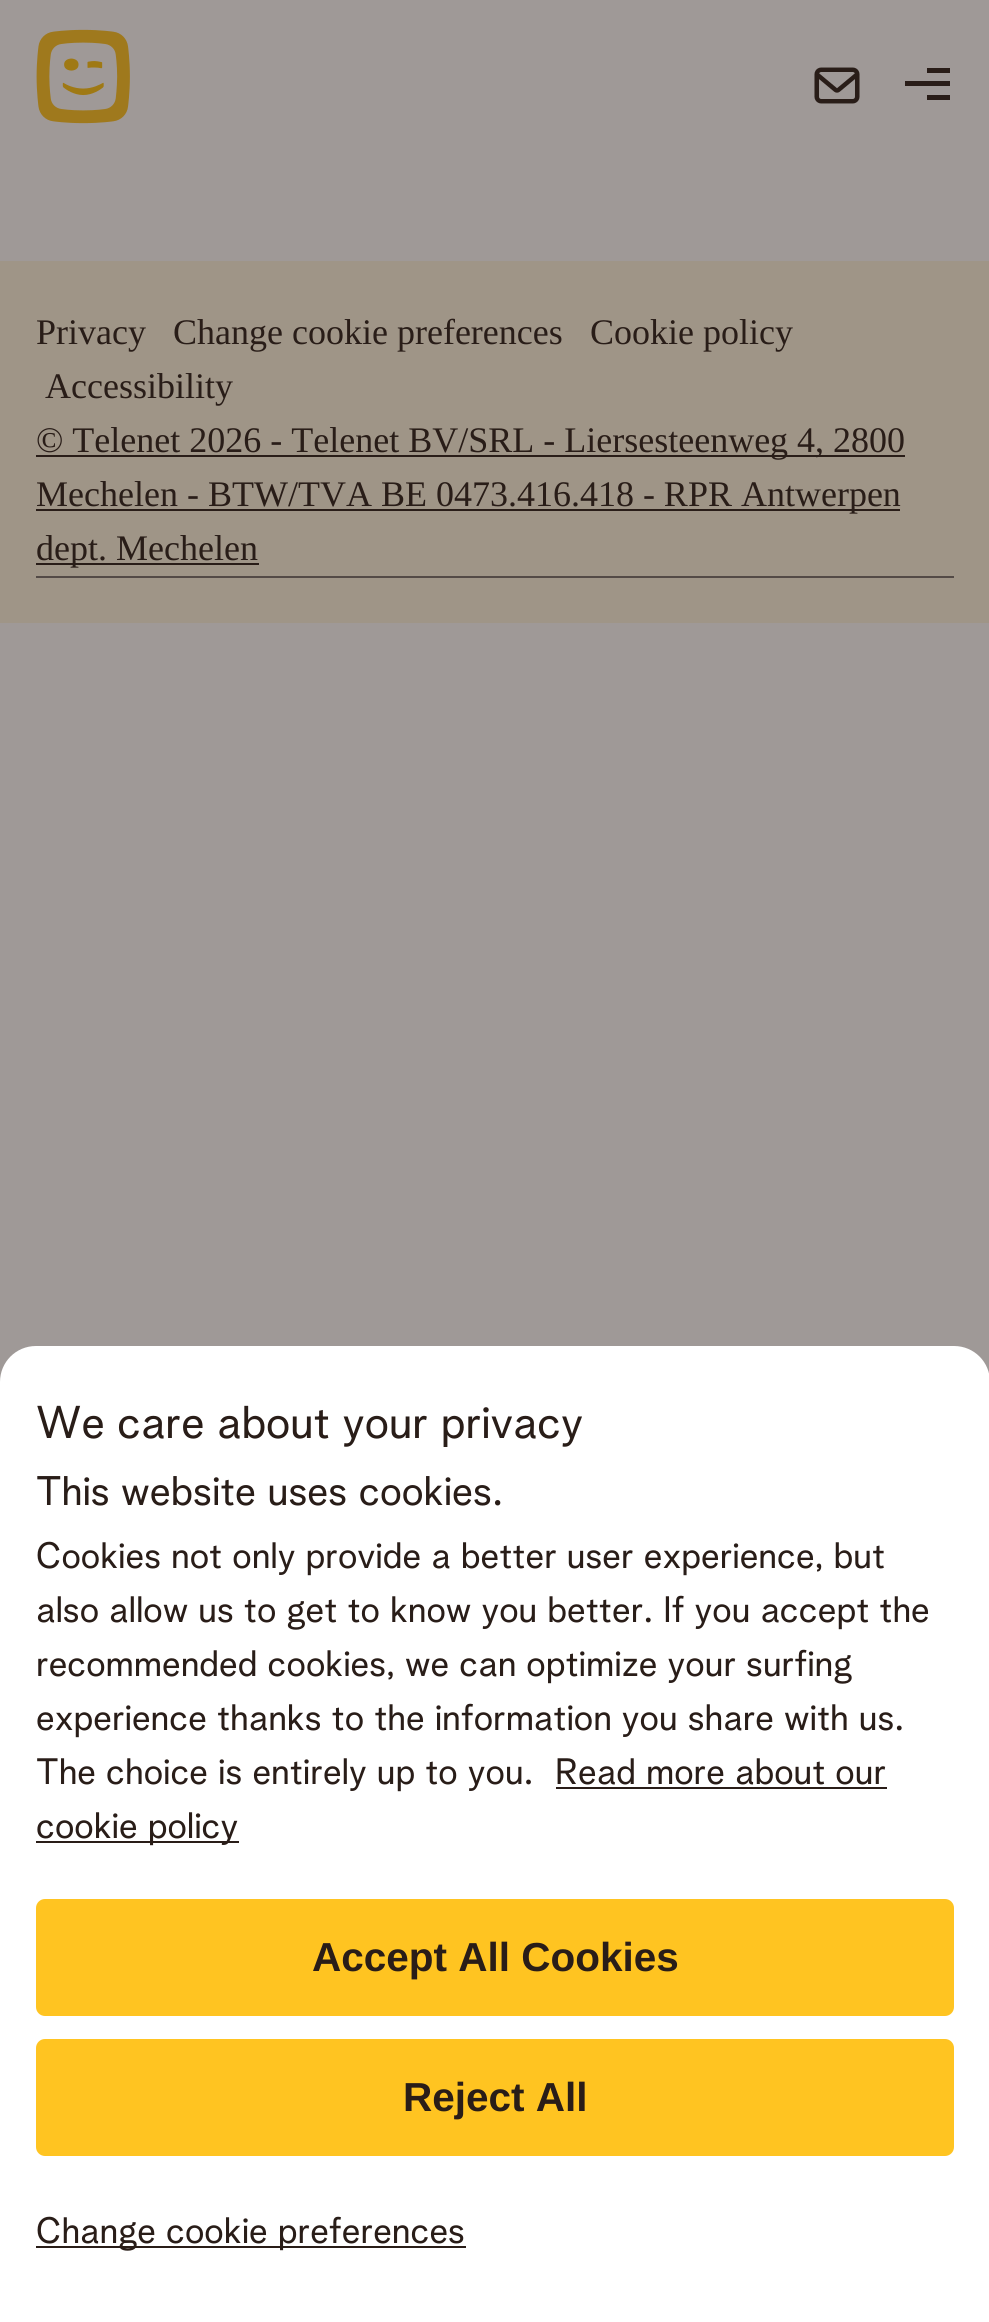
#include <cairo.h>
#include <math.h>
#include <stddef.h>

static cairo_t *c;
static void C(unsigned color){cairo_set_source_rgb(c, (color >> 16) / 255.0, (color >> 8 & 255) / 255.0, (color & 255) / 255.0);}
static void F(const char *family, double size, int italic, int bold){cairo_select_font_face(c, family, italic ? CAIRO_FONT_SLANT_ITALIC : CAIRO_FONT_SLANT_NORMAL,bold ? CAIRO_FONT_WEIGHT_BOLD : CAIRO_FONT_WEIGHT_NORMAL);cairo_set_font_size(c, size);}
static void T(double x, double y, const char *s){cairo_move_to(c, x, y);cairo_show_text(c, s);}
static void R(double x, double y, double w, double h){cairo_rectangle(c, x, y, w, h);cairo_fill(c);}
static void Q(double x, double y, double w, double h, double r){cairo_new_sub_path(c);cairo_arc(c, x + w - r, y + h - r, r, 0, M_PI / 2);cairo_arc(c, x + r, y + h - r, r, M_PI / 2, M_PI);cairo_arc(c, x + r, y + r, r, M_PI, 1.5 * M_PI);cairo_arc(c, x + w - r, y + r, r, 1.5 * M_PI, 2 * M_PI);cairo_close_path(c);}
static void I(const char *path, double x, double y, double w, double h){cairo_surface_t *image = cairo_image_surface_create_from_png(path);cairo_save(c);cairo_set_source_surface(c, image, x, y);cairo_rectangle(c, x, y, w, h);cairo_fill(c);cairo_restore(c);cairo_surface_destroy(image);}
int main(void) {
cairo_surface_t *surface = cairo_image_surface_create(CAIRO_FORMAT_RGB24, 989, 2322);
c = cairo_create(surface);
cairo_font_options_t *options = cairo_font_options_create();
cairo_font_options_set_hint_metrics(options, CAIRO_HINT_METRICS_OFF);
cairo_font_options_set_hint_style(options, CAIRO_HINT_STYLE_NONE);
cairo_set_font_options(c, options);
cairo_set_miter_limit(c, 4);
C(0x9f9997);
cairo_paint(c);
I("1.png",36,29,94,95);
I("2.png",814,67,46,37);
C(0x291d18);
R(905,81,45,5);
R(927,68,23,5);
R(927,95,23,5);
C(0x9f9587);
R(0,261,989,362);
F("Liberation Serif",36,0,0);
C(0x291d18);
T(36,344,"Privacy");
T(173,344,"Change cookie preferences");
T(590,344,"Cookie policy");
T(45,398,"Accessibility");
C(0x534a46);
R(36,576,918,2);
C(0x291d18);
R(36,455,869,2);
T(36,452,"© Telenet 2026 - Telenet BV/SRL - Liersesteenweg 4, 2800");
R(36,509,864,2);
T(36,506,"Mechelen - BTW/TVA BE 0473.416.418 - RPR Antwerpen");
R(36,563,223,2);
T(36,560,"dept. Mechelen");
C(0xffffff);
cairo_new_path(c);
cairo_move_to(c,36,1346);
cairo_line_to(c,954,1346);
cairo_curve_to(c,974,1346,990,1362,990,1382);
cairo_line_to(c,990,2322);
cairo_line_to(c,0,2322);
cairo_line_to(c,0,1382);
cairo_curve_to(c,0,1362,16,1346,36,1346);
cairo_close_path(c);
cairo_fill(c);
F("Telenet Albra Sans",45,0,0);
C(0x291d18);
T(36,1438,"We care about your privacy");
F("Telenet Albra Sans",40.5,0,0);
T(36,1505,"This website uses cookies.");
F("Telenet Albra Sans",36,0,0);
T(36,1568,"Cookies not only provide a better user experience, but");
T(36,1622,"also allow us to get to know you better. If you accept the");
T(36,1676,"recommended cookies, we can optimize your surfing");
T(36,1730,"experience thanks to the information you share with us.");
T(36,1784,"The choice is entirely up to you.");
T(555,1784,"Read more about our");
R(556,1787,331,2);
R(36,1841,203,2);
T(36,1838,"cookie policy");
C(0xffc421);
Q(36,1899,918,117,9);
cairo_fill(c);
F("Liberation Sans",40.5,0,1);
C(0x291d18);
T(312,1971,"Accept All Cookies");
C(0xffc421);
Q(36,2039,918,117,9);
cairo_fill(c);
C(0x291d18);
T(403,2111,"Reject All");
R(36,2246,430,2);
F("Telenet Albra Sans",36,0,0);
T(36,2243,"Change cookie preferences");
cairo_surface_write_to_png(surface, "o.png");
cairo_font_options_destroy(options);
cairo_destroy(c);
cairo_surface_destroy(surface);
return 0;
}
